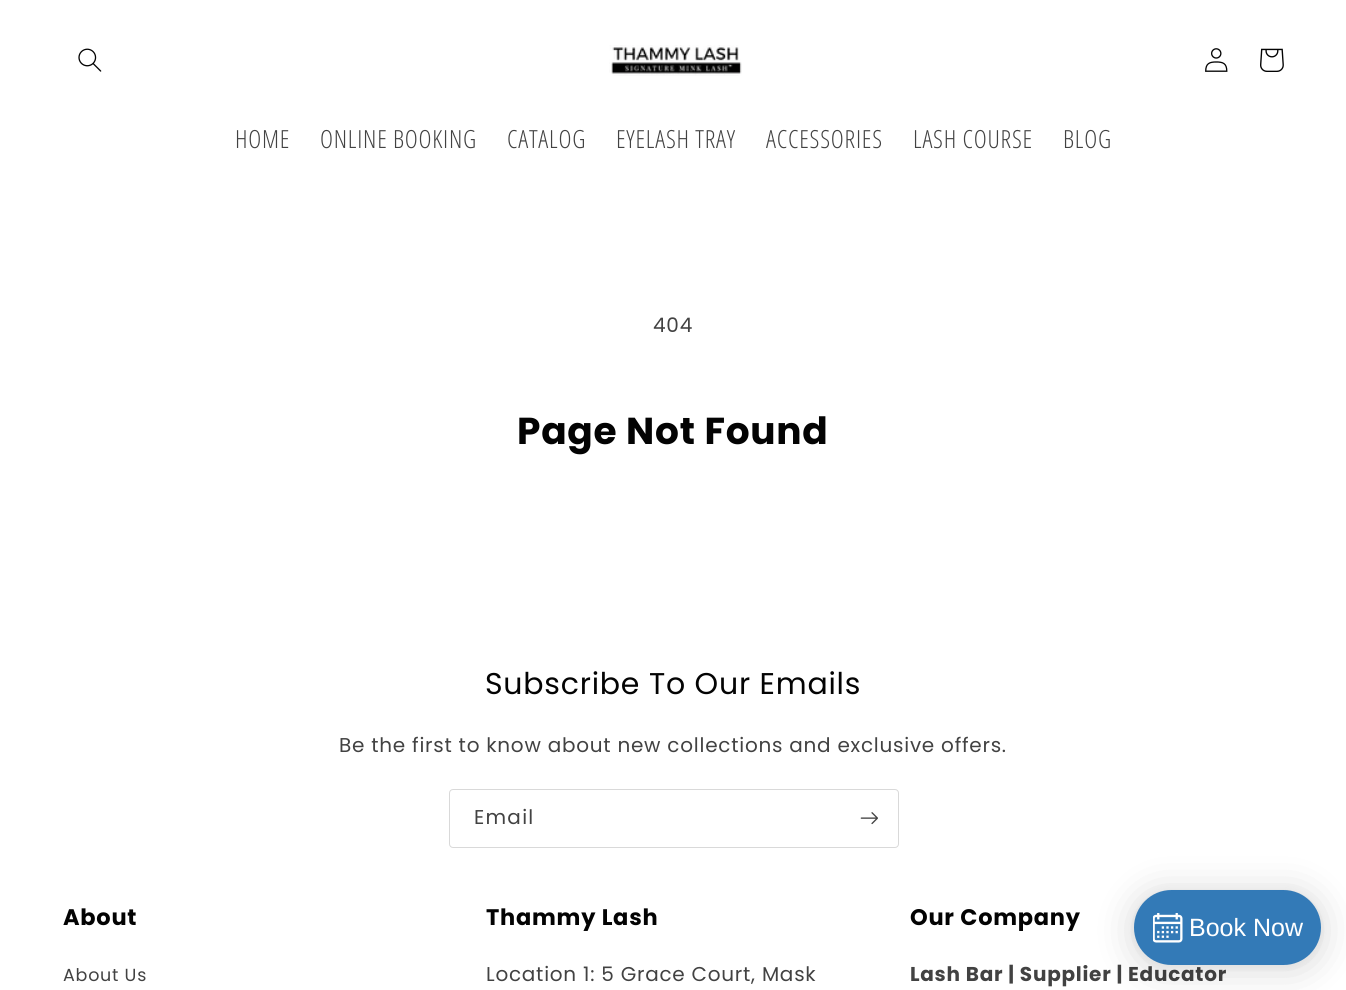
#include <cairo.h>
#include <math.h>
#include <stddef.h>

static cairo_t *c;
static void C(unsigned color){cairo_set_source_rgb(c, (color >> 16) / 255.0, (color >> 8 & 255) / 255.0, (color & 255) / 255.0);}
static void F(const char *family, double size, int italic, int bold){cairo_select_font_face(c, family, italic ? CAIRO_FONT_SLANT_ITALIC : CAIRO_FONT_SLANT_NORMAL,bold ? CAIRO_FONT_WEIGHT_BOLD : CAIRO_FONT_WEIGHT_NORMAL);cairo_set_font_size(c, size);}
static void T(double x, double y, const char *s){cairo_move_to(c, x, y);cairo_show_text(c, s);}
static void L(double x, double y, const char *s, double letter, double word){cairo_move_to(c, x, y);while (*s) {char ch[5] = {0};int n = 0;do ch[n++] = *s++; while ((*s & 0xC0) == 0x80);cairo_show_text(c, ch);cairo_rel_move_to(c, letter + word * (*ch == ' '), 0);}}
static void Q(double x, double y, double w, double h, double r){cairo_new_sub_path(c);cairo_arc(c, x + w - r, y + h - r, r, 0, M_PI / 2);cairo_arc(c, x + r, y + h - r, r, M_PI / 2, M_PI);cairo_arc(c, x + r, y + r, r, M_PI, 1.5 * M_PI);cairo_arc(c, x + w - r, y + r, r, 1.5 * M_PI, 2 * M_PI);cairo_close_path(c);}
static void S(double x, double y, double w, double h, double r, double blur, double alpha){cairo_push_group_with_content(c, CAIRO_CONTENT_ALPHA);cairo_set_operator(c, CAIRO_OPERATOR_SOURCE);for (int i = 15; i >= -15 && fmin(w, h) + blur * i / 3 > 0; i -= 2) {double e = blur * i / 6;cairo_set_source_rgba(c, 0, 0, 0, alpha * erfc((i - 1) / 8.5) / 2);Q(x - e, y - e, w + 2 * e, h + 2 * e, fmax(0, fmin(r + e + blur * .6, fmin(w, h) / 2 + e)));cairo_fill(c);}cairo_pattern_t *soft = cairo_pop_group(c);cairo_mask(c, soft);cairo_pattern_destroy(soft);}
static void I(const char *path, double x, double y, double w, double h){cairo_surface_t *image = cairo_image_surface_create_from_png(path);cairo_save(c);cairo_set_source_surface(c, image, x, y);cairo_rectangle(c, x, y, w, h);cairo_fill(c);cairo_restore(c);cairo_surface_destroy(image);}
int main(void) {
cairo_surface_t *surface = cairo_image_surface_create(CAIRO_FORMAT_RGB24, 1346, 990);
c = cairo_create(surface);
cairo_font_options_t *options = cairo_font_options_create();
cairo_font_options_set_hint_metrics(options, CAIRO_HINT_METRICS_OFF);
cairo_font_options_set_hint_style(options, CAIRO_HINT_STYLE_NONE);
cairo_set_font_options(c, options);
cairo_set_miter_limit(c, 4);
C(0xffffff);
cairo_paint(c);
I("1.png",78,48,24,24);
I("2.png",609,45,133,31);
I("3.png",1205,48,23,24);
I("4.png",1260,48,24,24);
F("Open Sans Light",25,0,0);
C(0x424242);
L(235,148,"HOME",.75,0);
L(320,148,"ONLINE BOOKING",.75,0);
L(507,148,"CATALOG",.75,0);
L(616,148,"EYELASH TRAY",.75,0);
L(766,148,"ACCESSORIES",.75,0);
L(913,148,"LASH COURSE",.75,0);
L(1063,148,"BLOG",.75,0);
F("Poppins",20,0,0);
L(653,332,"404",.75,0);
F("Poppins",37.5,0,1);
C(0x030303);
L(517,444,"Page Not Found",.75,0);
F("Poppins",30,0,0);
L(485,694,"Subscribe To Our Emails",.75,0);
F("Poppins",20,0,0);
C(0x424242);
L(339,752,"Be the first to know about new collections and exclusive offers.",.75,0);
Q(449.5,789.5,449,58,3.5);
cairo_set_source_rgba(c,0.012,0.012,0.012,0.15);
cairo_set_line_width(c,1);
cairo_stroke(c);
C(0x424242);
L(474,824,"Email",1.25,0);
I("5.png",860,812,18,13);
F("Poppins",22.5,0,1);
C(0x030303);
L(63,925,"About",.75,0);
F("Poppins",17.5,0,0);
C(0x424242);
L(63,981,"About Us",.75,0);
F("Poppins",22.5,0,1);
C(0x030303);
L(486,925,"Thammy Lash",.75,0);
F("Poppins",20,0,0);
C(0x424242);
L(486,981,"Location 1: 5 Grace Court, Mask",.75,0);
F("Poppins",22.5,0,1);
C(0x030303);
L(910,925,"Our Company",.75,0);
F("Poppins",20,0,1);
C(0x424242);
L(910,981,"Lash Bar | Supplier | Educator",.75,0);
C(0x000000);
S(1134,893,187,75,37.5,20,.16);
S(1134,891,187,75,37.5,4,.06);
C(0x337ab7);
Q(1134,890,187,75,37.5);
cairo_fill(c);
I("6.png",1153,913,30,30);
F("Liberation Sans",25,0,0);
C(0xffffff);
T(1189,936,"Book Now");
cairo_surface_write_to_png(surface, "o.png");
cairo_font_options_destroy(options);
cairo_destroy(c);
cairo_surface_destroy(surface);
return 0;
}
